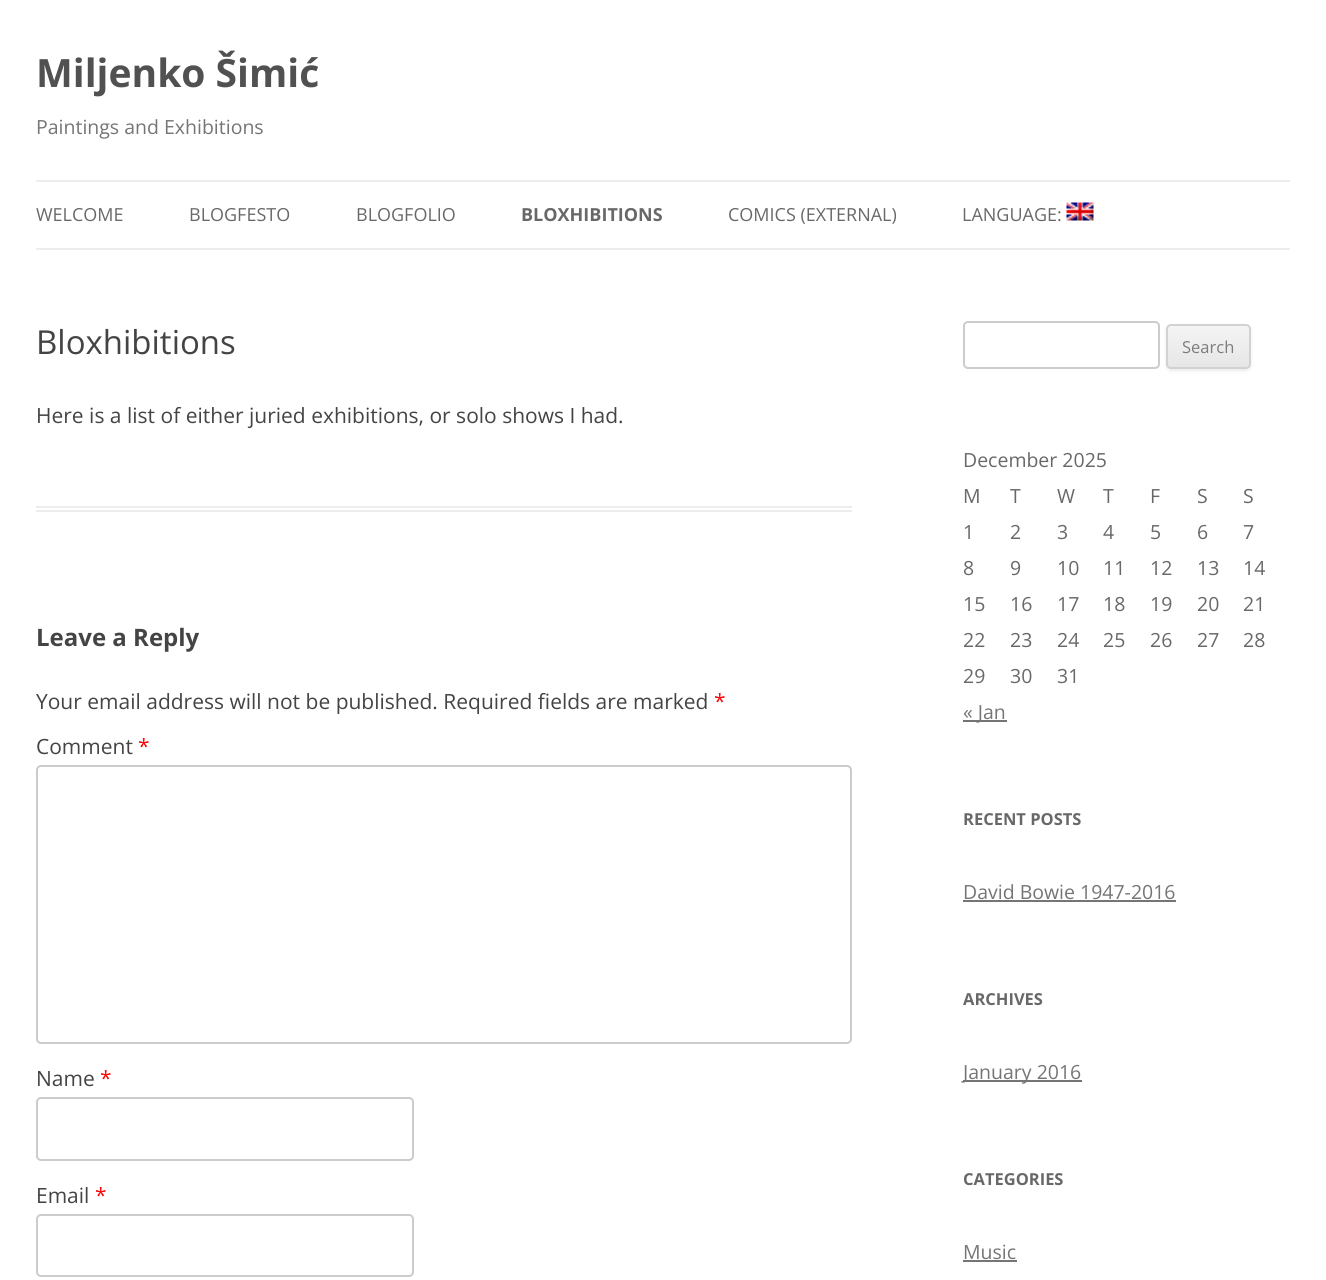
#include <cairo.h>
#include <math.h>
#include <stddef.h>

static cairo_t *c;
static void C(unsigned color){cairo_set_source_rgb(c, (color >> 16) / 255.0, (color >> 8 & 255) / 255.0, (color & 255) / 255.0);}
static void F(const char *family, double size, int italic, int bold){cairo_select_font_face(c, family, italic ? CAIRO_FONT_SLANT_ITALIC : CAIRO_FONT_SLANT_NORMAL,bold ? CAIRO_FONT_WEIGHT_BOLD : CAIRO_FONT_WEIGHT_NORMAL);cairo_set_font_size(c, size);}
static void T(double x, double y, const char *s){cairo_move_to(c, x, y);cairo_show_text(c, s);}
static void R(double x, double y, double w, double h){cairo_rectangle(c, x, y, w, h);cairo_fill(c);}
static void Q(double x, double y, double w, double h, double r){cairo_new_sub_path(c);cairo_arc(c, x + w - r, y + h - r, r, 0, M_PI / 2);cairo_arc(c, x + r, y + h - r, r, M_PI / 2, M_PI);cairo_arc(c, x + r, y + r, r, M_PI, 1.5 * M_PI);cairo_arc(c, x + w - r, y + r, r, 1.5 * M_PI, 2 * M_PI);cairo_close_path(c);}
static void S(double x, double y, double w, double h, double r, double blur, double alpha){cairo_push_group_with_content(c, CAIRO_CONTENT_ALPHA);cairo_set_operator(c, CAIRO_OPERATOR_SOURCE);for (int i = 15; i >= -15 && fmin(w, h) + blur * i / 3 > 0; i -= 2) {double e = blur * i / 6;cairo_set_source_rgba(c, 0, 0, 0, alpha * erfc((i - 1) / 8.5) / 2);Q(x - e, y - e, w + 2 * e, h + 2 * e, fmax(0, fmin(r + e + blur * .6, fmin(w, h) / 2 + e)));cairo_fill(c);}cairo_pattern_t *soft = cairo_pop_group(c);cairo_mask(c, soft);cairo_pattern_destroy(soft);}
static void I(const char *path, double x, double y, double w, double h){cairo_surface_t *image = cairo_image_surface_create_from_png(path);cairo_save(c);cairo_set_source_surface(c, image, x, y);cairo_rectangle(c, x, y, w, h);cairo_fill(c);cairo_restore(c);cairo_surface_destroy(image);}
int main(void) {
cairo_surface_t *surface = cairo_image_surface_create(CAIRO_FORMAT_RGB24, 1326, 1280);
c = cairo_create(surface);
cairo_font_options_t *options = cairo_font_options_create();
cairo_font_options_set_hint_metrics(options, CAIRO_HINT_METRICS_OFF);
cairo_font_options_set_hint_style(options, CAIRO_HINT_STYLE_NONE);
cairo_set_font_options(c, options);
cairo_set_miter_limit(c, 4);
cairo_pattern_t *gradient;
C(0xffffff);
cairo_paint(c);
F("Open Sans",39,0,1);
C(0x515151);
T(36,87,"Miljenko Šimić");
F("Open Sans",19.5,0,0);
C(0x757575);
T(36,134,"Paintings and Exhibitions");
C(0xededed);
R(36,180,1254,2);
R(36,248,1254,2);
F("Open Sans",18,0,0);
C(0x686868);
T(36,221,"WELCOME");
T(189,221,"BLOGFESTO");
T(356,221,"BLOGFOLIO");
F("Open Sans",18,0,1);
T(521,221,"BLOXHIBITIONS");
F("Open Sans",18,0,0);
T(728,221,"COMICS (EXTERNAL)");
T(962,221,"LANGUAGE:");
I("1.png",1066,202,28,19);
C(0xededed);
R(36,506,816,2);
R(36,510,816,2);
F("Open Sans",33,0,0);
C(0x444444);
T(36,354,"Bloxhibitions");
F("Open Sans",21,0,0);
T(36,423,"Here is a list of either juried exhibitions, or solo shows I had.");
F("Open Sans",24,0,1);
T(36,646,"Leave a Reply");
F("Open Sans",21,0,0);
T(36,709,"Your email address will not be published. Required fields are marked");
C(0xff0000);
T(714,709,"*");
C(0x444444);
T(36,754,"Comment");
C(0xff0000);
T(138,754,"*");
Q(37,766,814,277,4);
C(0xcccccc);
cairo_stroke(c);
C(0x444444);
T(36,1086,"Name");
C(0xff0000);
T(100,1086,"*");
Q(37,1098,376,62,4);
C(0xcccccc);
cairo_stroke(c);
C(0x444444);
T(36,1203,"Email");
C(0xff0000);
T(95,1203,"*");
Q(37,1215,376,61,4);
C(0xcccccc);
cairo_stroke(c);
Q(964,322,195,46,4);
cairo_stroke(c);
C(0x404040);
S(1166,326,85,45,5,1.5,.1);
cairo_save(c);
Q(1166,324,85,45,5);
cairo_clip(c);
gradient = cairo_pattern_create_linear(1208,326,1208,368);
cairo_pattern_add_color_stop_rgba(gradient,0,0.957,0.957,0.957,1);
cairo_pattern_add_color_stop_rgba(gradient,1,0.902,0.902,0.902,1);
cairo_set_source(c,gradient);
cairo_pattern_destroy(gradient);
R(1166,326,85,42);
cairo_restore(c);
Q(1167,325,83,43,4);
C(0xd2d2d2);
cairo_stroke(c);
F("Open Sans",16.5,0,0);
C(0x7c7c7c);
T(1182,353,"Search");
F("Open Sans",19.5,0,0);
C(0x686868);
T(963,467,"December 2025");
T(963,503,"M");
T(1010,503,"T");
T(1057,503,"W");
T(1103,503,"T");
T(1150,503,"F");
T(1197,503,"S");
T(1243,503,"S");
T(963,539,"1");
T(1010,539,"2");
T(1057,539,"3");
T(1103,539,"4");
T(1150,539,"5");
T(1197,539,"6");
T(1243,539,"7");
T(963,575,"8");
T(1010,575,"9");
T(1057,575,"10");
T(1103,575,"11");
T(1150,575,"12");
T(1197,575,"13");
T(1243,575,"14");
T(963,611,"15");
T(1010,611,"16");
T(1057,611,"17");
T(1103,611,"18");
T(1150,611,"19");
T(1197,611,"20");
T(1243,611,"21");
T(963,647,"22");
T(1010,647,"23");
T(1057,647,"24");
T(1103,647,"25");
T(1150,647,"26");
T(1197,647,"27");
T(1243,647,"28");
T(963,683,"29");
T(1010,683,"30");
T(1057,683,"31");
C(0x757575);
R(963,720,44,2);
T(963,719,"« Jan");
F("Open Sans",16.5,0,1);
C(0x686868);
T(963,825,"RECENT POSTS");
F("Open Sans",19.5,0,0);
C(0x757575);
T(963,899,"David Bowie 1947-2016");
R(963,900,213,2);
F("Open Sans",16.5,0,1);
C(0x686868);
T(963,1005,"ARCHIVES");
C(0x757575);
R(963,1080,119,2);
F("Open Sans",19.5,0,0);
T(963,1079,"January 2016");
F("Open Sans",16.5,0,1);
C(0x686868);
T(963,1185,"CATEGORIES");
F("Open Sans",19.5,0,0);
C(0x757575);
T(963,1259,"Music");
R(963,1260,54,2);
cairo_surface_write_to_png(surface, "o.png");
cairo_font_options_destroy(options);
cairo_destroy(c);
cairo_surface_destroy(surface);
return 0;
}
